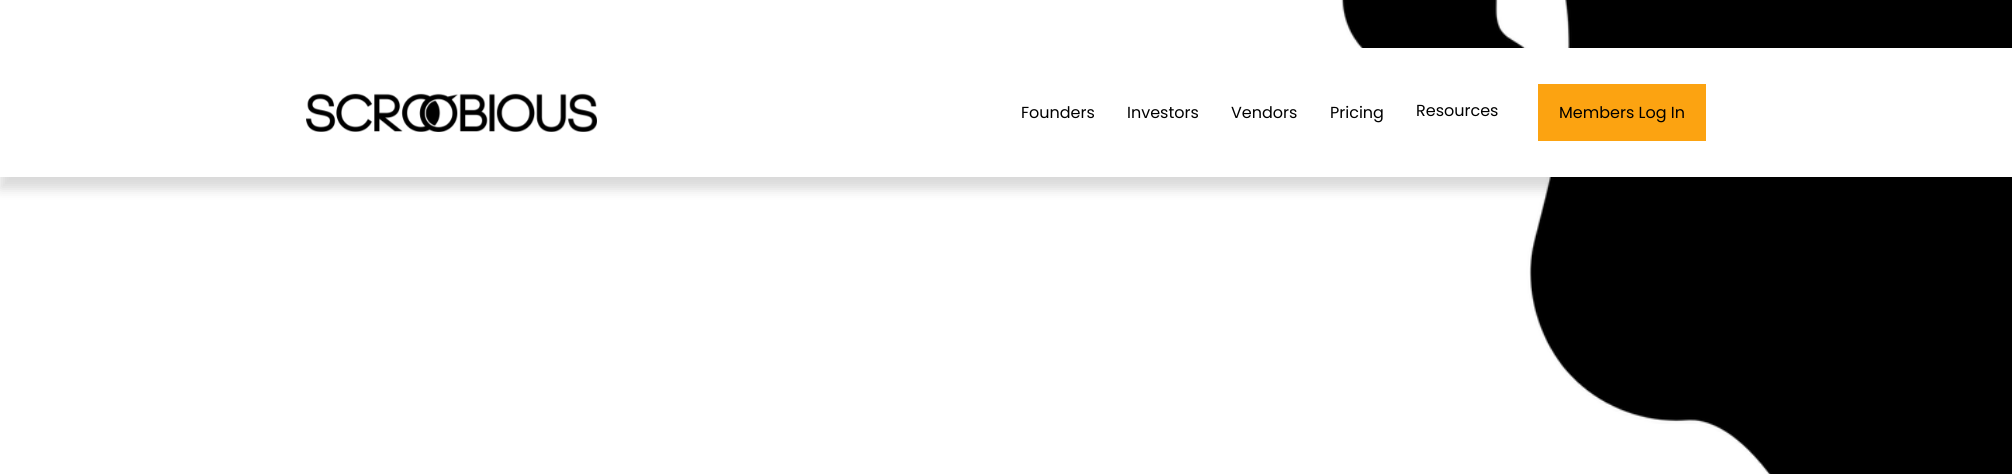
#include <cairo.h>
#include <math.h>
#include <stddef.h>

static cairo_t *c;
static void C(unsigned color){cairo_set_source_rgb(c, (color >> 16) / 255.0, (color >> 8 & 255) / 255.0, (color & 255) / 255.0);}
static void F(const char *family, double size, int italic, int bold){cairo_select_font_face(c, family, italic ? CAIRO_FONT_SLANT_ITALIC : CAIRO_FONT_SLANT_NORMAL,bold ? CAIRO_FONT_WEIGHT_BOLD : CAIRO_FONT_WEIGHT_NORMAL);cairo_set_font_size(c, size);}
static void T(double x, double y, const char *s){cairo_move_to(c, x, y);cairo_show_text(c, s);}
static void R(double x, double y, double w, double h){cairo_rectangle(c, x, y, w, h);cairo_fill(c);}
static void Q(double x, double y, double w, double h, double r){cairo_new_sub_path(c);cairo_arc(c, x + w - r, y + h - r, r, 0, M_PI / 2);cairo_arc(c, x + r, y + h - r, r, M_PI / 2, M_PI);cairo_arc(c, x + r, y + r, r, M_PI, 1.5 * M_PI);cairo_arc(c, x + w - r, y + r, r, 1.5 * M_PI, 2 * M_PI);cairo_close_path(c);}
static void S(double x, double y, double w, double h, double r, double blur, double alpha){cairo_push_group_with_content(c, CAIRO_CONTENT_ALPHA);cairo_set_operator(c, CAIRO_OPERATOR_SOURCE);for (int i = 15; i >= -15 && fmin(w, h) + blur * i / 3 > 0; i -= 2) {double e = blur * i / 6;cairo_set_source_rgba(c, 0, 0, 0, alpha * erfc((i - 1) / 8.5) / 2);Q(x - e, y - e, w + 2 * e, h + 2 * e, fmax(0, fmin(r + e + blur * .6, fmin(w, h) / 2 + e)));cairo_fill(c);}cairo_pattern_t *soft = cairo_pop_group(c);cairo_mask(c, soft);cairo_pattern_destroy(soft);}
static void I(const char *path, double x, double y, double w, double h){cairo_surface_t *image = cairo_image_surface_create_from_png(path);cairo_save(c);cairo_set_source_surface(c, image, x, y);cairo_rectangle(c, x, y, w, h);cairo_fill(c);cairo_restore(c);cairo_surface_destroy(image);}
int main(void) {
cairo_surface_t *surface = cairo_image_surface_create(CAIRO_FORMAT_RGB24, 2012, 474);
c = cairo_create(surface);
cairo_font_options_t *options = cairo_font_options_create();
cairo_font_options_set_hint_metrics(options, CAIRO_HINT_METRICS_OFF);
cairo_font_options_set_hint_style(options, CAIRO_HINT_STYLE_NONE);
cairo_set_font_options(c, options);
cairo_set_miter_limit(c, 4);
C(0xffffff);
cairo_paint(c);
I("1.png",1341,0,671,474);
C(0x000000);
S(0,60,2012,129,0,6,.15);
C(0xffffff);
R(0,48,2012,129);
I("2.png",306,93,291,39);
F("Poppins",16,0,0);
C(0x000000);
T(1021,118,"Founders");
T(1127,118,"Investors");
T(1231,118,"Vendors");
T(1330,118,"Pricing");
T(1416,116,"Resources");
C(0xfca311);
R(1538,84,168,57);
C(0x000000);
T(1559,118,"Members Log In");
cairo_surface_write_to_png(surface, "o.png");
cairo_font_options_destroy(options);
cairo_destroy(c);
cairo_surface_destroy(surface);
return 0;
}
